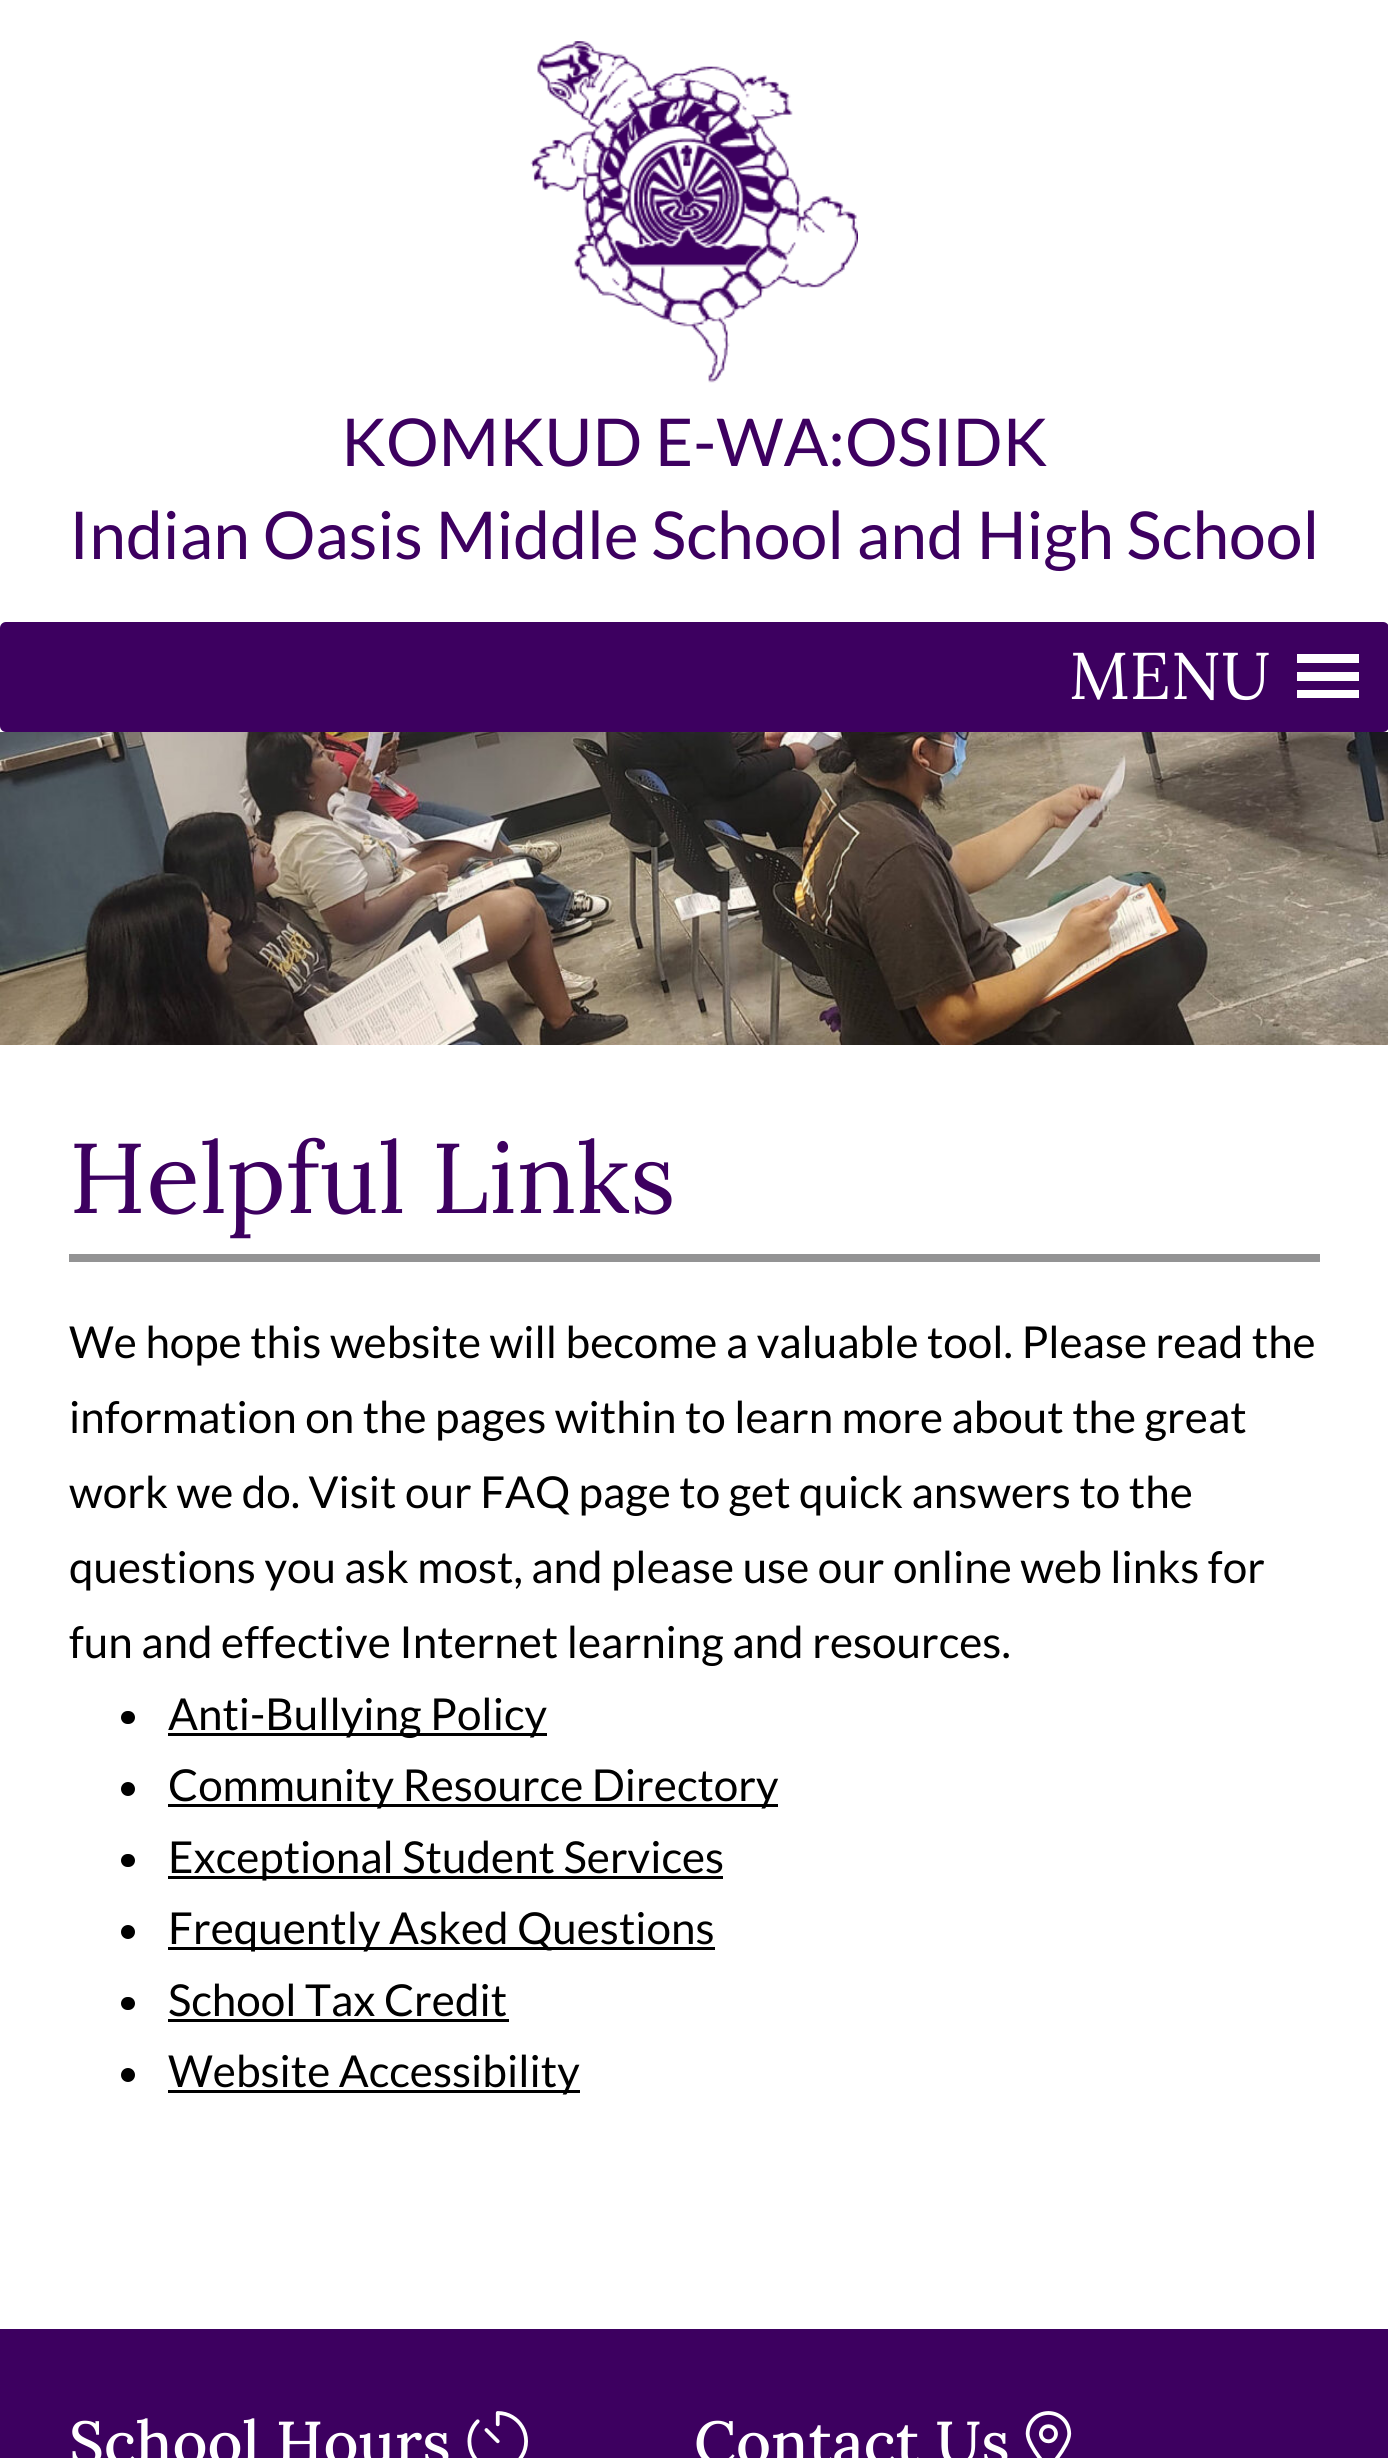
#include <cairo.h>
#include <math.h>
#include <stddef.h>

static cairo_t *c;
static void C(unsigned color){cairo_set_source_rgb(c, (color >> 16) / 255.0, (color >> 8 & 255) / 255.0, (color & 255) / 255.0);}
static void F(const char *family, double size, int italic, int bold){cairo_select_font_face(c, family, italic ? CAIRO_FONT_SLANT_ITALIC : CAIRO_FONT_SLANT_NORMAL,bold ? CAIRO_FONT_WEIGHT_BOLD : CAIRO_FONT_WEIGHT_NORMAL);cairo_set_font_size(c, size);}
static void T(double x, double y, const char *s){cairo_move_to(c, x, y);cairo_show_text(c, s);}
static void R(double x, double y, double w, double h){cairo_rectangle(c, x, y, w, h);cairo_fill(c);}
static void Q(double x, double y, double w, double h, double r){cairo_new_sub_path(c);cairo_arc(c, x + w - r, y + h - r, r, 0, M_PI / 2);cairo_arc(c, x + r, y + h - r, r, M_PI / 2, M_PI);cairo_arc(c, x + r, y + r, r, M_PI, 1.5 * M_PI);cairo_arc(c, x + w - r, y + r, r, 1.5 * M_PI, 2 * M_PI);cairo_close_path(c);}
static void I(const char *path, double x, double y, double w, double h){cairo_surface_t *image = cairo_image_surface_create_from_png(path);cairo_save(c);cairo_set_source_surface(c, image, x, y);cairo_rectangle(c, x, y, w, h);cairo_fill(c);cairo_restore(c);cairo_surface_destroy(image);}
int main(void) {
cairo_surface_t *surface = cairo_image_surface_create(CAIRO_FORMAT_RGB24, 1388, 2458);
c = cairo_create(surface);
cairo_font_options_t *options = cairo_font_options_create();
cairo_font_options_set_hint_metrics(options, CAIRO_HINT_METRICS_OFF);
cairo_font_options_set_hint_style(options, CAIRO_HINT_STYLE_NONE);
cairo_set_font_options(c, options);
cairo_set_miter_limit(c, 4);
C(0xffffff);
cairo_paint(c);
I("1.png",530,41,328,342);
F("Lato",66,0,0);
C(0x3d0060);
T(341,466,"KOMKUD E-WA:OSIDK");
T(69,559,"Indian Oasis Middle School and High School");
Q(0,622,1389,110,6);
cairo_fill(c);
F("Lora",66,0,0);
C(0xffffff);
T(1069,699,"MENU");
cairo_new_path(c);
cairo_move_to(c,1297,698);
cairo_line_to(c,1359,698);
cairo_line_to(c,1359,690);
cairo_line_to(c,1297,690);
cairo_close_path(c);
cairo_move_to(c,1297,654);
cairo_line_to(c,1297,663);
cairo_line_to(c,1359,663);
cairo_line_to(c,1359,654);
cairo_close_path(c);
cairo_move_to(c,1297,681);
cairo_line_to(c,1359,681);
cairo_line_to(c,1359,672);
cairo_line_to(c,1297,672);
cairo_close_path(c);
cairo_fill(c);
I("2.png",0,732,1388,313);
C(0x939394);
R(69,1254,1251,8);
F("Lora",99,0,0);
C(0x3d0060);
T(69,1213,"Helpful Links");
F("Lato",44,0,0);
C(0x000000);
T(69,1358,"We hope this website will become a valuable tool. Please read the");
T(69,1433,"information on the pages within to learn more about the great");
T(69,1508,"work we do. Visit our FAQ page to get quick answers to the");
T(69,1583,"questions you ask most, and please use our online web links for");
T(69,1658,"fun and effective Internet learning and resources.");
Q(121,1711,14,13,6.5);
cairo_fill(c);
R(168,1733,379,3);
T(168,1730,"Anti-Bullying Policy");
cairo_new_path(c);
cairo_arc(c,128,1789,7,0,2 * M_PI);
cairo_fill(c);
R(168,1804,610,3);
T(168,1801,"Community Resource Directory");
Q(121,1854,14,13,6.5);
cairo_fill(c);
R(168,1876,555,3);
T(168,1873,"Exceptional Student Services");
cairo_new_path(c);
cairo_arc(c,128,1932,7,0,2 * M_PI);
cairo_fill(c);
R(168,1947,547,3);
T(168,1944,"Frequently Asked Questions");
Q(121,1997,14,13,6.5);
cairo_fill(c);
T(168,2016,"School Tax Credit");
R(168,2019,341,3);
cairo_new_path(c);
cairo_arc(c,128,2075,7,0,2 * M_PI);
cairo_fill(c);
R(168,2090,412,3);
T(168,2087,"Website Accessibility");
C(0x3d0060);
R(0,2329,1388,129);
F("Lora Medium",60.5,0,0);
C(0xffffff);
T(69,2464,"School Hours");
I("3.png",467,2411,61,47);
T(694,2464,"Contact Us");
I("4.png",1025,2411,47,47);
cairo_surface_write_to_png(surface, "o.png");
cairo_font_options_destroy(options);
cairo_destroy(c);
cairo_surface_destroy(surface);
return 0;
}
